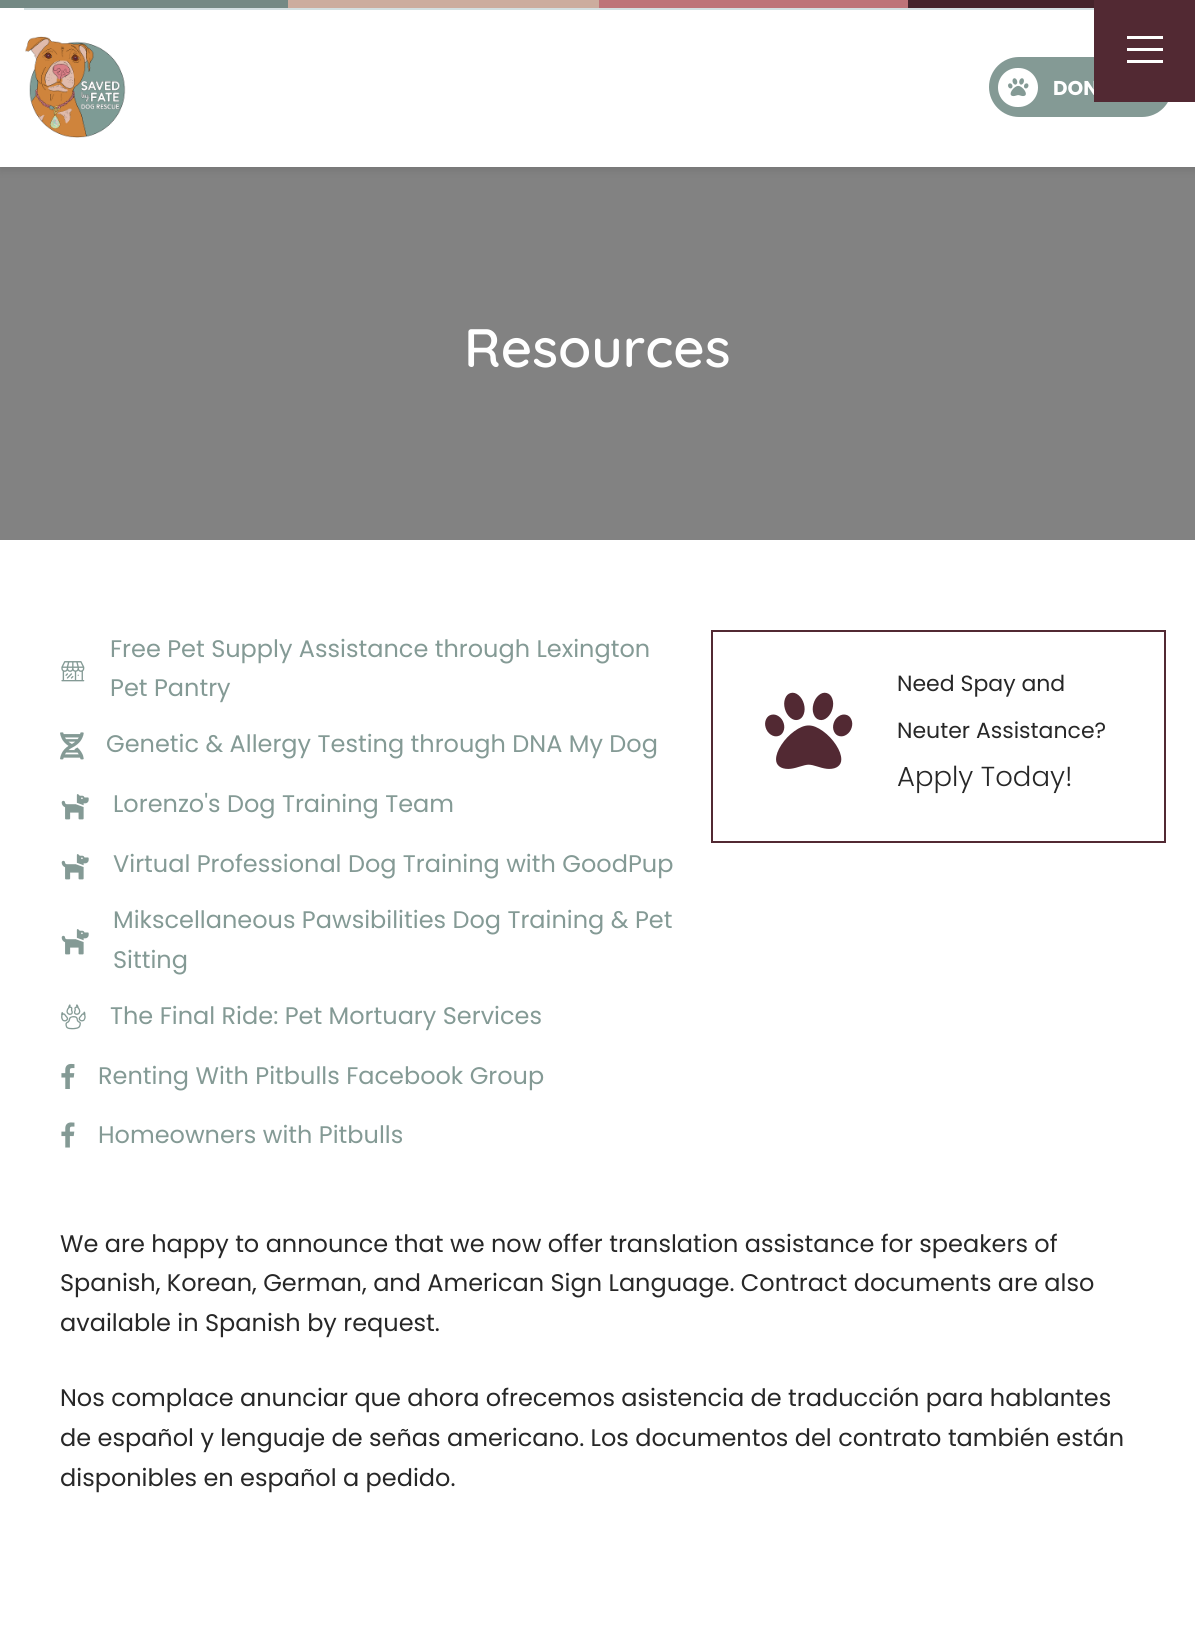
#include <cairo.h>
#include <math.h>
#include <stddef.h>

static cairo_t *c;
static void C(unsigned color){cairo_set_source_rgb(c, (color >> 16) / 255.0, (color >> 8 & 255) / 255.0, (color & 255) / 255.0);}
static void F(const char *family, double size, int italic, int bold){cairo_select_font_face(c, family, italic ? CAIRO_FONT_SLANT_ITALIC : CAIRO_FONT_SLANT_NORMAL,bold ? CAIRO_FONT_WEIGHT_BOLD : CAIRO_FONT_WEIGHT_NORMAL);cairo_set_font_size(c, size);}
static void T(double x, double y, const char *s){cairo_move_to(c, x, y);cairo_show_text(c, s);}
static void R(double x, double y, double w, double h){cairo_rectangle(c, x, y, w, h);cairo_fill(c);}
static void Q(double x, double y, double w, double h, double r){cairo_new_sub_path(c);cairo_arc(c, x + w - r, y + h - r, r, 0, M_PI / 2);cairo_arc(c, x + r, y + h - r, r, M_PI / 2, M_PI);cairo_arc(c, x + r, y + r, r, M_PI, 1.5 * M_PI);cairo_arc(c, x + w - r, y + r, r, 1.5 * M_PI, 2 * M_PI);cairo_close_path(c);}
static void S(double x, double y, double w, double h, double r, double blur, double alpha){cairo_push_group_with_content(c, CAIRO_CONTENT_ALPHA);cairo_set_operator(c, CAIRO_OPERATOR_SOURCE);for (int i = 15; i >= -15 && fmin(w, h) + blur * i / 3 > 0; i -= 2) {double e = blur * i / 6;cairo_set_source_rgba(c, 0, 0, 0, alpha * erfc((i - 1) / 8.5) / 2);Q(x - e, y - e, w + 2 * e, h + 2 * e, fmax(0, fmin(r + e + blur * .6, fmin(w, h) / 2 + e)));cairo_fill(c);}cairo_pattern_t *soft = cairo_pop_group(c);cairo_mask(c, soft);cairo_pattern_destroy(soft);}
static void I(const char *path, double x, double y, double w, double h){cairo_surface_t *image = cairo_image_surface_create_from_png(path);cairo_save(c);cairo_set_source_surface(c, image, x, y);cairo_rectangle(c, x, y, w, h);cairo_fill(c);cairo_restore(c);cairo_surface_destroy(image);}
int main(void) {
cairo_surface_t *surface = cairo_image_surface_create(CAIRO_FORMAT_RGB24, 1195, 1642);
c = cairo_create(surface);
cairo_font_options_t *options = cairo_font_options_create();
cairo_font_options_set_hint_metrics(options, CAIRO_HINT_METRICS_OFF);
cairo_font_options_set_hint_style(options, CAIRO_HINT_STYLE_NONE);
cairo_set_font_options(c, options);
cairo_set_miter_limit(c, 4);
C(0xffffff);
cairo_paint(c);
C(0x828282);
R(0,167,1195,373);
C(0x000000);
S(0,3,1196,167,0,4.5,.1);
C(0xffffff);
R(0,8,1195,159);
C(0x748984);
R(0,0,288,8);
C(0xccac9e);
R(288,0,311,8);
C(0xbe7378);
R(599,0,309,8);
C(0x45232b);
R(908,0,186,8);
C(0xd3dfe1);
R(24,8,1070,2);
I("1.png",25,36,101,102);
C(0x849a95);
Q(989,57,183,60,30);
cairo_fill(c);
C(0xffffff);
Q(998,68,40,39,19.5);
cairo_fill(c);
I("2.png",1008,78,21,19);
F("Poppins",20,0,1);
T(1053,95,"DON");
C(0x522933);
R(1094,0,101,102);
C(0xffffff);
R(1127,36,36,3);
R(1127,48,36,3);
R(1127,60,36,3);
F("Quicksand SemiBold",54,0,0);
T(464,367,"Resources");
I("3.png",61,661,24,21);
F("Poppins",24,0,0);
C(0x849a95);
T(110,657,"Free Pet Supply Assistance through Lexington");
T(110,696,"Pet Pantry");
I("4.png",60,732,24,28);
T(106,752,"Genetic & Allergy Testing through DNA My Dog");
I("5.png",61,794,28,26);
T(113,812,"Lorenzo's Dog Training Team");
I("5.png",61,854,28,26);
T(113,872,"Virtual Professional Dog Training with GoodPup");
I("5.png",61,929,28,26);
T(113,928,"Mikscellaneous Pawsibilities Dog Training & Pet");
T(113,968,"Sitting");
I("6.png",61,1004,25,26);
T(110,1024,"The Final Ride: Pet Mortuary Services");
I("7.png",61,1063,14,26);
T(98,1084,"Renting With Pitbulls Facebook Group");
I("8.png",61,1122,14,26);
T(98,1143,"Homeowners with Pitbulls");
cairo_rectangle(c,712,631,453,211);
C(0x522933);
cairo_stroke(c);
I("9.png",765,692,88,77);
F("Poppins",22,0,0);
C(0x272727);
T(897,691,"Need Spay and");
T(897,738,"Neuter Assistance?");
F("Poppins Light",27.5,0,0);
T(897,786,"Apply Today!");
F("Poppins",24,0,0);
T(60,1252,"We are happy to announce that we now offer translation assistance for speakers of");
T(60,1291,"Spanish, Korean, German, and American Sign Language. Contract documents are also");
T(60,1331,"available in Spanish by request.");
T(60,1406,"Nos complace anunciar que ahora ofrecemos asistencia de traducción para hablantes");
T(60,1446,"de español y lenguaje de señas americano. Los documentos del contrato también están");
T(60,1486,"disponibles en español a pedido.");
cairo_surface_write_to_png(surface, "o.png");
cairo_font_options_destroy(options);
cairo_destroy(c);
cairo_surface_destroy(surface);
return 0;
}
